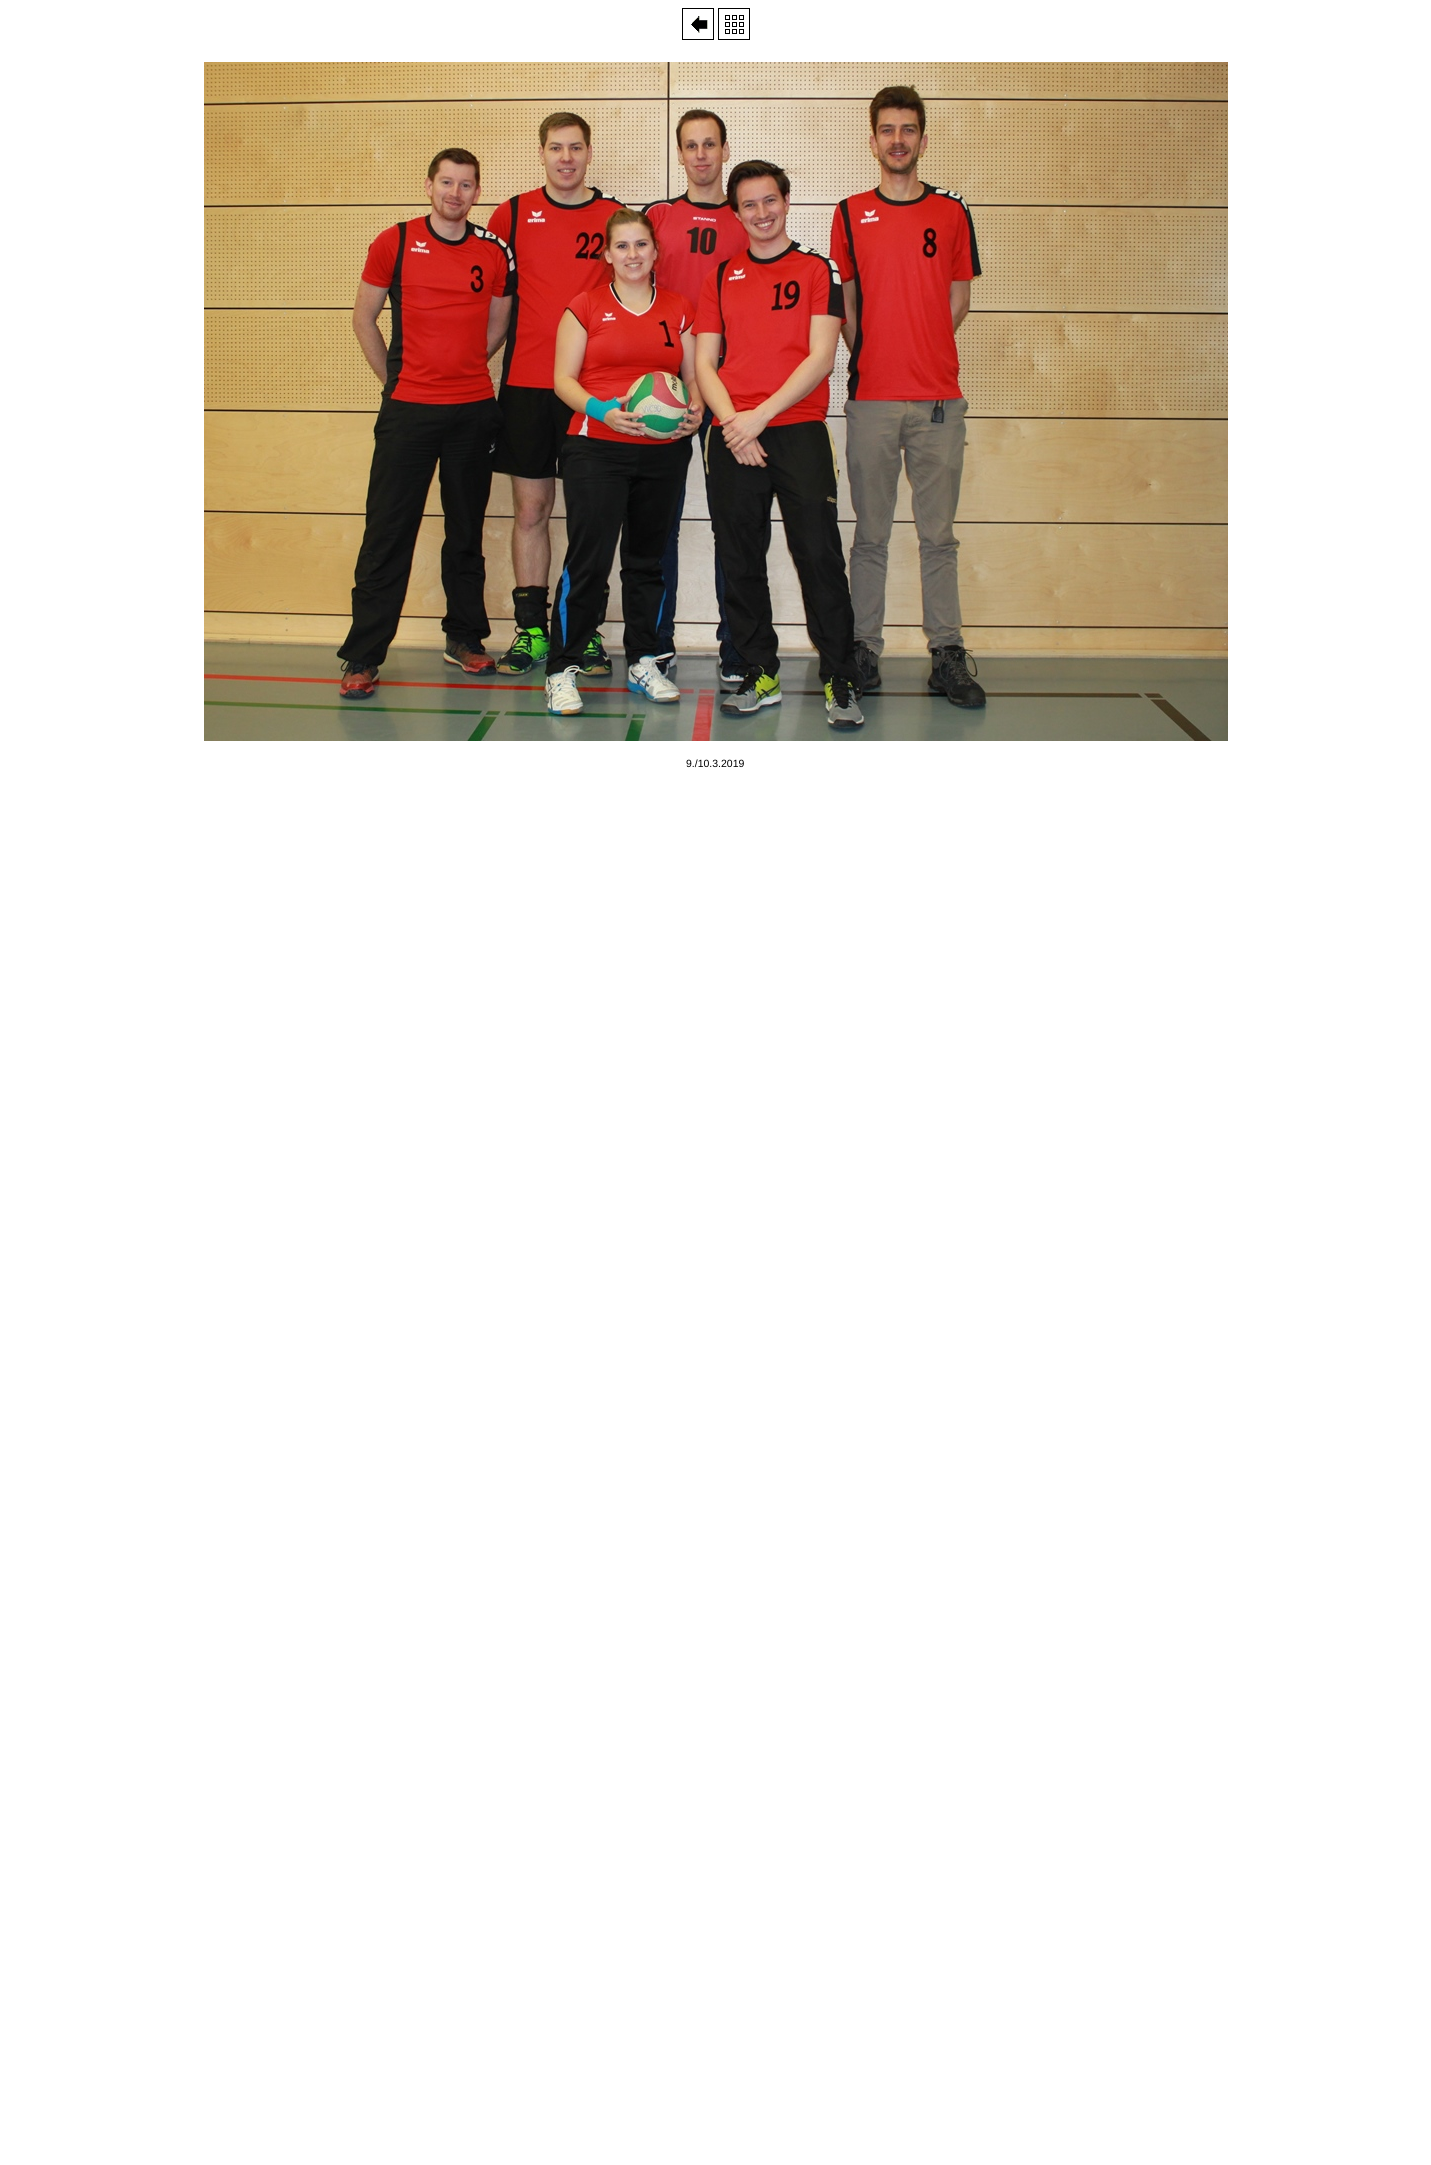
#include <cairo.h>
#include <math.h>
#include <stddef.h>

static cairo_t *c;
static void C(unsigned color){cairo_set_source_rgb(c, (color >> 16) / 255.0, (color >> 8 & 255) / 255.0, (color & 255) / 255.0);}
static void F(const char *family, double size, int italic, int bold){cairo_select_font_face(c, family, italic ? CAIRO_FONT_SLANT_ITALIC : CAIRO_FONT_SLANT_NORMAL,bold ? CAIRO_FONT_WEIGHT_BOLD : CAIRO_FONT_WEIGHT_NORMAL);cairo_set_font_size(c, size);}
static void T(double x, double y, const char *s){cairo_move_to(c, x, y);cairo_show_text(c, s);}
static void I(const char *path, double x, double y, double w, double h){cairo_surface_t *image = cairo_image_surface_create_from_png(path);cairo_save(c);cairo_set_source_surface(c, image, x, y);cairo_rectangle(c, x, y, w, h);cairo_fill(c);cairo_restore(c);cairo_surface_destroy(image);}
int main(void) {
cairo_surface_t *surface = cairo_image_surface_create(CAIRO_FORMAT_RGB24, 1431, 2165);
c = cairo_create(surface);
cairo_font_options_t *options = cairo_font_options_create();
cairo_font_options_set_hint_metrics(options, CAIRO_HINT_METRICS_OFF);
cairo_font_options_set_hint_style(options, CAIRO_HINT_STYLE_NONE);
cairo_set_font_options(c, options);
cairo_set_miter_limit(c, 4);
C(0xffffff);
cairo_paint(c);
I("1.png",682,8,32,32);
I("2.png",718,8,32,32);
I("3.png",204,62,1024,679);
F("Liberation Sans",10.5,0,0);
C(0x000000);
T(686,767,"9./10.3.2019");
cairo_surface_write_to_png(surface, "o.png");
cairo_font_options_destroy(options);
cairo_destroy(c);
cairo_surface_destroy(surface);
return 0;
}
